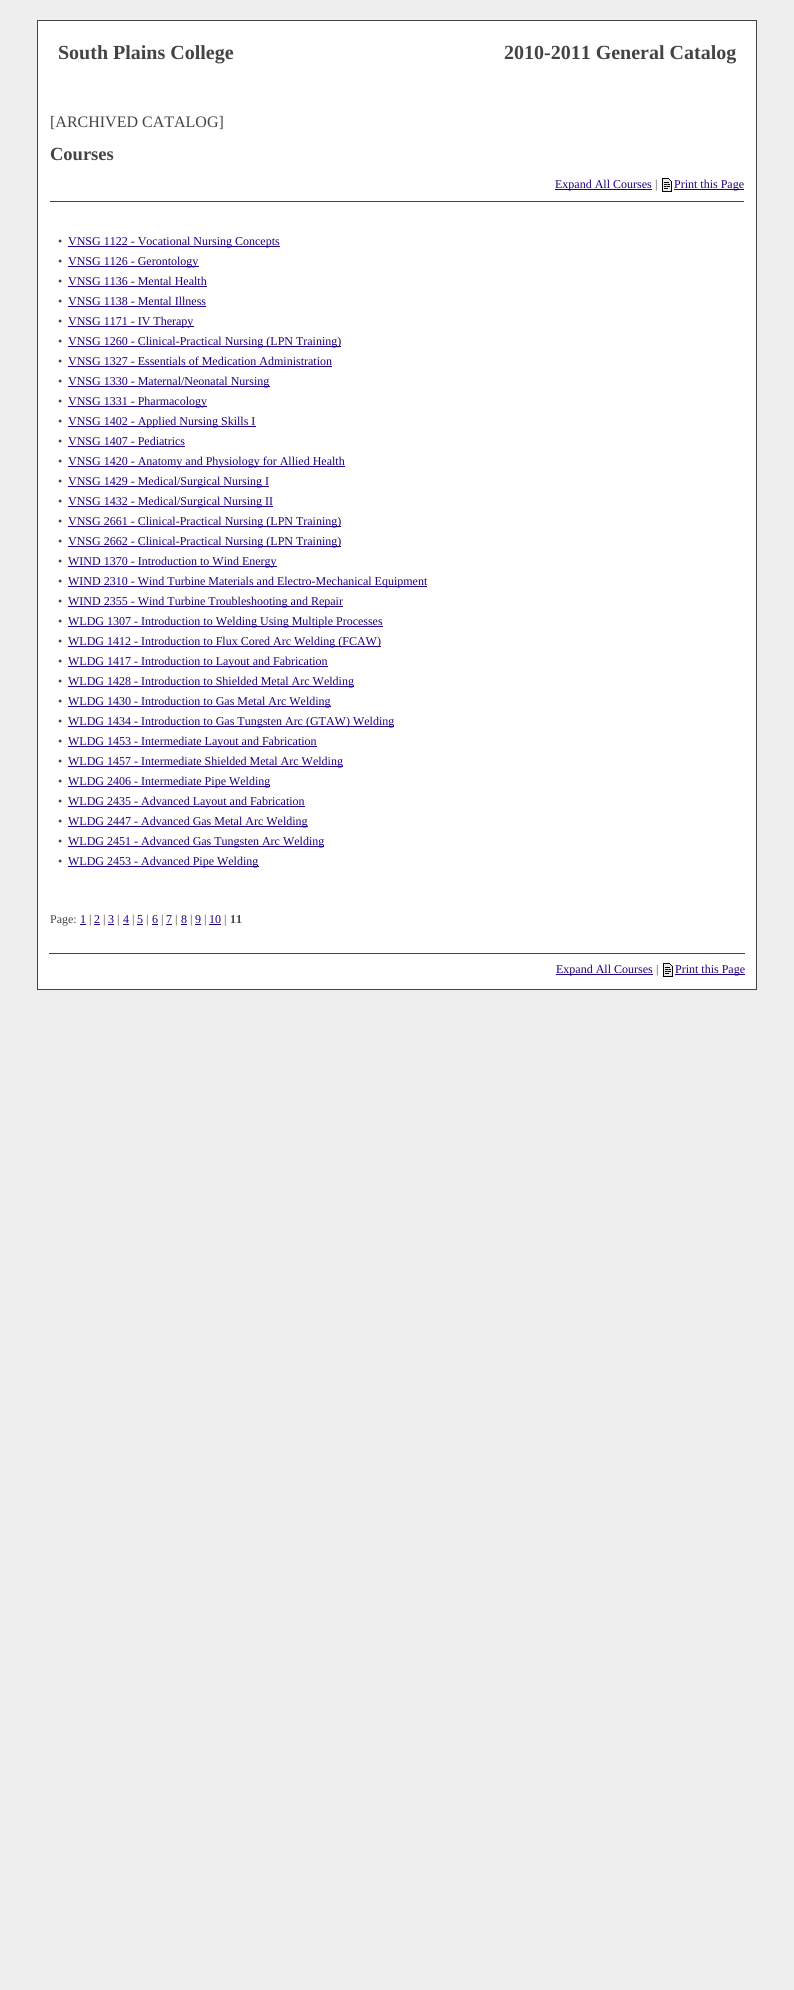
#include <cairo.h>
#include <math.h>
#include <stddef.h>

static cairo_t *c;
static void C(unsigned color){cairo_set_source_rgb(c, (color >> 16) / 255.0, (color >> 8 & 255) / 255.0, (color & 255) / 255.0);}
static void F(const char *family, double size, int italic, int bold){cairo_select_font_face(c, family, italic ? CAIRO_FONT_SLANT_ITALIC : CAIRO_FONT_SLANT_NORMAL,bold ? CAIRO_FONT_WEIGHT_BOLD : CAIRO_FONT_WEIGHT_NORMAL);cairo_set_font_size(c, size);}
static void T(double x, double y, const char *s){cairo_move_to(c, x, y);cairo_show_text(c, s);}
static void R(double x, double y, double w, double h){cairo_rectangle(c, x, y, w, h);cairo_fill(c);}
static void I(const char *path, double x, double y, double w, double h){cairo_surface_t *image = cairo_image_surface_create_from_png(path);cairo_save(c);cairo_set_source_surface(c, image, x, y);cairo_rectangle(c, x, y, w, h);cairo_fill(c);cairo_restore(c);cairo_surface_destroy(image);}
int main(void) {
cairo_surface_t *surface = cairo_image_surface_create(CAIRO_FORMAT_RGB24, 794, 1990);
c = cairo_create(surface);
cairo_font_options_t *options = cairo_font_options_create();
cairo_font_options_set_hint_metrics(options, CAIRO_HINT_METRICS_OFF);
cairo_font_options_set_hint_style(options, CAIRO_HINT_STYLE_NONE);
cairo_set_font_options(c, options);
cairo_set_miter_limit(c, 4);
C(0xeeeeee);
cairo_paint(c);
C(0xffffff);
cairo_rectangle(c,37.5,20.5,719,969);
cairo_fill_preserve(c);
C(0x444444);
cairo_set_line_width(c,1);
cairo_stroke(c);
F("Liberation Serif",20,0,1);
T(58,59,"South Plains College");
T(504,59,"2010-2011 General Catalog");
F("Liberation Serif",16,0,0);
T(50,127,"[ARCHIVED CATALOG]");
F("Liberation Serif",18.5,0,1);
T(50,160,"Courses");
C(0x20007f);
R(555,189,97,1);
F("Liberation Serif",12,0,0);
T(555,188,"Expand All Courses");
C(0x444444);
T(655,188,"|");
I("1.png",662,178,10,14);
C(0x20007f);
R(674,189,70,1);
T(674,188,"Print this Page");
C(0x444444);
R(50,201,694,1);
T(58,245,"•");
C(0x20007f);
R(68,246,212,1);
T(68,245,"VNSG 1122 - Vocational Nursing Concepts");
C(0x444444);
T(58,265,"•");
C(0x20007f);
R(68,266,131,1);
T(68,265,"VNSG 1126 - Gerontology");
C(0x444444);
T(58,285,"•");
C(0x20007f);
T(68,285,"VNSG 1136 - Mental Health");
R(68,286,139,1);
C(0x444444);
T(58,305,"•");
C(0x20007f);
T(68,305,"VNSG 1138 - Mental Illness");
R(68,306,138,1);
C(0x444444);
T(58,325,"•");
C(0x20007f);
R(68,326,126,1);
T(68,325,"VNSG 1171 - IV Therapy");
C(0x444444);
T(58,345,"•");
C(0x20007f);
R(68,346,273,1);
T(68,345,"VNSG 1260 - Clinical-Practical Nursing (LPN Training)");
C(0x444444);
T(58,365,"•");
C(0x20007f);
T(68,365,"VNSG 1327 - Essentials of Medication Administration");
R(68,366,264,1);
C(0x444444);
T(58,385,"•");
C(0x20007f);
R(68,386,202,1);
T(68,385,"VNSG 1330 - Maternal/Neonatal Nursing");
C(0x444444);
T(58,405,"•");
C(0x20007f);
R(68,406,139,1);
T(68,405,"VNSG 1331 - Pharmacology");
C(0x444444);
T(58,425,"•");
C(0x20007f);
R(68,426,188,1);
T(68,425,"VNSG 1402 - Applied Nursing Skills I");
C(0x444444);
T(58,445,"•");
C(0x20007f);
T(68,445,"VNSG 1407 - Pediatrics");
R(68,446,117,1);
C(0x444444);
T(58,465,"•");
C(0x20007f);
R(68,466,277,1);
T(68,465,"VNSG 1420 - Anatomy and Physiology for Allied Health");
C(0x444444);
T(58,485,"•");
C(0x20007f);
R(68,486,201,1);
T(68,485,"VNSG 1429 - Medical/Surgical Nursing I");
C(0x444444);
T(58,505,"•");
C(0x20007f);
R(68,506,205,1);
T(68,505,"VNSG 1432 - Medical/Surgical Nursing II");
C(0x444444);
T(58,525,"•");
C(0x20007f);
R(68,526,273,1);
T(68,525,"VNSG 2661 - Clinical-Practical Nursing (LPN Training)");
C(0x444444);
T(58,545,"•");
C(0x20007f);
R(68,546,273,1);
T(68,545,"VNSG 2662 - Clinical-Practical Nursing (LPN Training)");
C(0x444444);
T(58,565,"•");
C(0x20007f);
R(68,566,209,1);
T(68,565,"WIND 1370 - Introduction to Wind Energy");
C(0x444444);
T(58,585,"•");
C(0x20007f);
R(68,586,359,1);
T(68,585,"WIND 2310 - Wind Turbine Materials and Electro-Mechanical Equipment");
C(0x444444);
T(58,605,"•");
C(0x20007f);
R(68,606,275,1);
T(68,605,"WIND 2355 - Wind Turbine Troubleshooting and Repair");
C(0x444444);
T(58,625,"•");
C(0x20007f);
R(68,626,315,1);
T(68,625,"WLDG 1307 - Introduction to Welding Using Multiple Processes");
C(0x444444);
T(58,645,"•");
C(0x20007f);
R(68,646,313,1);
T(68,645,"WLDG 1412 - Introduction to Flux Cored Arc Welding (FCAW)");
C(0x444444);
T(58,665,"•");
C(0x20007f);
R(68,666,260,1);
T(68,665,"WLDG 1417 - Introduction to Layout and Fabrication");
C(0x444444);
T(58,685,"•");
C(0x20007f);
R(68,686,286,1);
T(68,685,"WLDG 1428 - Introduction to Shielded Metal Arc Welding");
C(0x444444);
T(58,705,"•");
C(0x20007f);
R(68,706,263,1);
T(68,705,"WLDG 1430 - Introduction to Gas Metal Arc Welding");
C(0x444444);
T(58,725,"•");
C(0x20007f);
R(68,726,326,1);
T(68,725,"WLDG 1434 - Introduction to Gas Tungsten Arc (GTAW) Welding");
C(0x444444);
T(58,745,"•");
C(0x20007f);
R(68,746,249,1);
T(68,745,"WLDG 1453 - Intermediate Layout and Fabrication");
C(0x444444);
T(58,765,"•");
C(0x20007f);
R(68,766,275,1);
T(68,765,"WLDG 1457 - Intermediate Shielded Metal Arc Welding");
C(0x444444);
T(58,785,"•");
C(0x20007f);
R(68,786,202,1);
T(68,785,"WLDG 2406 - Intermediate Pipe Welding");
C(0x444444);
T(58,805,"•");
C(0x20007f);
R(68,806,237,1);
T(68,805,"WLDG 2435 - Advanced Layout and Fabrication");
C(0x444444);
T(58,825,"•");
C(0x20007f);
R(68,826,240,1);
T(68,825,"WLDG 2447 - Advanced Gas Metal Arc Welding");
C(0x444444);
T(58,845,"•");
C(0x20007f);
R(68,846,256,1);
T(68,845,"WLDG 2451 - Advanced Gas Tungsten Arc Welding");
C(0x444444);
T(58,865,"•");
C(0x20007f);
R(68,866,191,1);
T(68,865,"WLDG 2453 - Advanced Pipe Welding");
C(0x444444);
T(50,923,"Page:");
C(0x20007f);
T(80,923,"1");
R(80,924,6,1);
C(0x444444);
T(89,923,"|");
C(0x20007f);
T(94,923,"2");
R(94,924,6,1);
C(0x444444);
T(103,923,"|");
C(0x20007f);
T(108,923,"3");
R(108,924,6,1);
C(0x444444);
T(117,923,"|");
C(0x20007f);
T(123,923,"4");
R(123,924,6,1);
C(0x444444);
T(132,923,"|");
C(0x20007f);
T(137,923,"5");
R(137,924,6,1);
C(0x444444);
T(146,923,"|");
C(0x20007f);
T(152,923,"6");
R(152,924,6,1);
C(0x444444);
T(161,923,"|");
C(0x20007f);
T(166,923,"7");
R(166,924,6,1);
C(0x444444);
T(175,923,"|");
C(0x20007f);
T(181,923,"8");
R(181,924,6,1);
C(0x444444);
T(190,923,"|");
C(0x20007f);
T(195,923,"9");
R(195,924,6,1);
C(0x444444);
T(204,923,"|");
C(0x20007f);
T(209,923,"10");
R(209,924,12,1);
C(0x444444);
T(224,923,"|");
F("Liberation Serif",12,0,1);
T(230,923,"11");
R(49,953,696,1);
C(0x20007f);
R(556,974,97,1);
F("Liberation Serif",12,0,0);
T(556,973,"Expand All Courses");
C(0x444444);
T(656,973,"|");
I("1.png",663,963,10,14);
C(0x20007f);
R(675,974,70,1);
T(675,973,"Print this Page");
cairo_surface_write_to_png(surface, "o.png");
cairo_font_options_destroy(options);
cairo_destroy(c);
cairo_surface_destroy(surface);
return 0;
}
